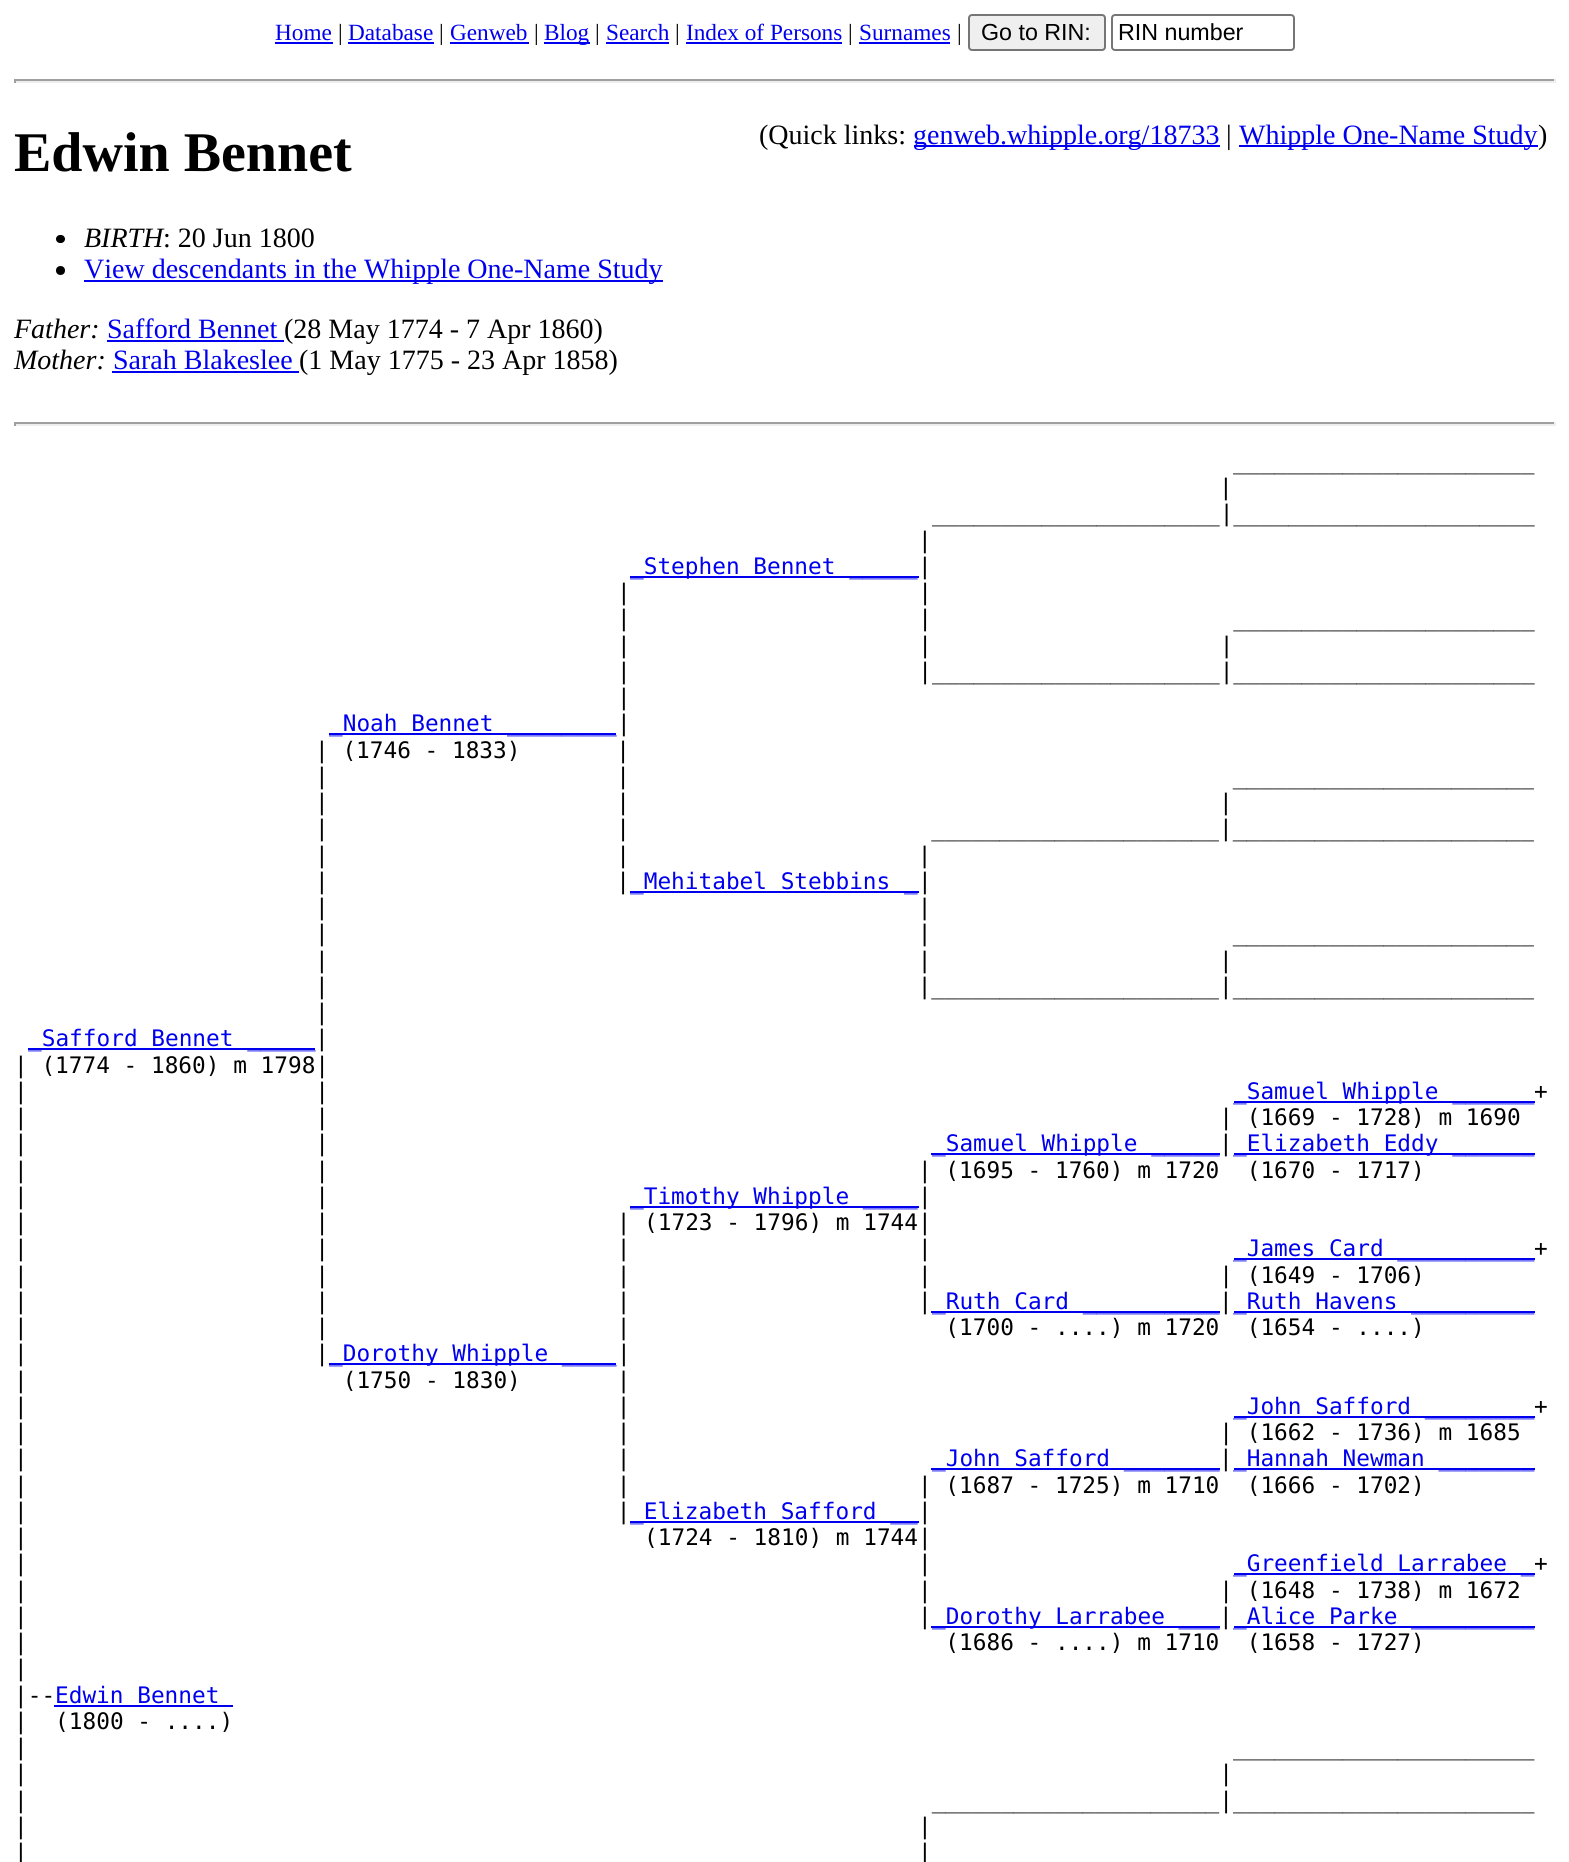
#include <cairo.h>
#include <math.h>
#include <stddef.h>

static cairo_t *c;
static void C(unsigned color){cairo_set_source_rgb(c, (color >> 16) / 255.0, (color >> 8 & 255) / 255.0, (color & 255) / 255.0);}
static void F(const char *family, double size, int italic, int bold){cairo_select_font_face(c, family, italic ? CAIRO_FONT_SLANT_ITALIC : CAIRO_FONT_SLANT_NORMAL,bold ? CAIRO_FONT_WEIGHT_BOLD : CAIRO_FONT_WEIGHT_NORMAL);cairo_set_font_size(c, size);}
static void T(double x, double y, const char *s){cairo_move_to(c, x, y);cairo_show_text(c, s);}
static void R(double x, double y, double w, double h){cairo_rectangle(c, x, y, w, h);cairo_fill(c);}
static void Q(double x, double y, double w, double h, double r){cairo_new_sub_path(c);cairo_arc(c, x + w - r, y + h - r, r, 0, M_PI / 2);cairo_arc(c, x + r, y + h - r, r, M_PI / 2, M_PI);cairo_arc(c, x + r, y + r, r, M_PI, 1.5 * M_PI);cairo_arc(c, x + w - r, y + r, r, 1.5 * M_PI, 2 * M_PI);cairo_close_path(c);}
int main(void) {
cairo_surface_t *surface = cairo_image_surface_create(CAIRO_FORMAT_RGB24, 1569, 1862);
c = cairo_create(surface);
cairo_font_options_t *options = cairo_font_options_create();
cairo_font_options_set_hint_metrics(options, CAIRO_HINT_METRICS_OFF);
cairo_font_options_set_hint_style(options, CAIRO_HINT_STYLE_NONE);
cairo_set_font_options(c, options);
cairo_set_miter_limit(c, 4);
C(0xffffff);
cairo_paint(c);
F("Liberation Serif",23.25,0,0);
C(0x0000ee);
T(275,40,"Home");
R(275,42,58,2);
C(0x000000);
T(338,40,"|");
C(0x0000ee);
T(348,40,"Database");
R(348,42,86,2);
C(0x000000);
T(439,40,"|");
C(0x0000ee);
T(450,40,"Genweb");
R(450,42,79,2);
C(0x000000);
T(534,40,"|");
C(0x0000ee);
R(544,42,46,2);
T(544,40,"Blog");
C(0x000000);
T(595,40,"|");
C(0x0000ee);
T(606,40,"Search");
R(606,42,63,2);
C(0x000000);
T(675,40,"|");
C(0x0000ee);
T(686,40,"Index of Persons");
R(686,42,156,2);
C(0x000000);
T(848,40,"|");
C(0x0000ee);
T(859,40,"Surnames");
R(859,42,91,2);
C(0x000000);
T(957,40,"|");
C(0xefefef);
Q(969,15,136,35,3);
cairo_fill_preserve(c);
C(0x767676);
cairo_stroke(c);
F("Liberation Sans",23.25,0,0);
C(0x000000);
T(981,40,"Go to RIN:");
Q(1112,15,182,35,3);
C(0x767676);
cairo_stroke(c);
C(0x000000);
T(1118,40,"RIN number");
C(0x9f9f9f);
R(14,79,1542,2);
C(0xeeeeee);
R(1554,79,2,4);
R(14,81,1542,2);
C(0x9f9f9f);
R(14,79,2,4);
F("Liberation Serif",56,0,1);
C(0x000000);
T(14,171,"Edwin Bennet");
F("Liberation Serif",28,0,0);
T(759,144,"(Quick links:");
C(0x0000ee);
R(914,145,306,2);
T(913,144,"genweb.whipple.org/18733");
C(0x000000);
T(1226,144,"|");
C(0x0000ee);
R(1239,145,299,2);
T(1239,144,"Whipple One-Name Study");
C(0x000000);
T(1538,144,")");
Q(56,235,9,8,4);
cairo_fill(c);
F("Liberation Serif",28,1,0);
T(84,247,"BIRTH");
F("Liberation Serif",28,0,0);
T(163,247,": 20 Jun 1800");
cairo_new_path(c);
cairo_arc(c,60.5,270.5,4.5,0,2 * M_PI);
cairo_fill(c);
C(0x0000ee);
R(84,280,579,2);
T(84,278,"View descendants in the Whipple One-Name Study");
F("Liberation Serif",28,1,0);
C(0x000000);
T(14,338,"Father:");
F("Liberation Serif",28,0,0);
C(0x0000ee);
T(107,338,"Safford Bennet");
R(107,340,177,2);
C(0x000000);
T(284,338,"(28 May 1774 - 7 Apr 1860)");
F("Liberation Serif",28,1,0);
T(14,369,"Mother:");
F("Liberation Serif",28,0,0);
C(0x0000ee);
T(113,369,"Sarah Blakeslee");
R(112,371,187,2);
C(0x000000);
T(299,369,"(1 May 1775 - 23 Apr 1858)");
C(0x9f9f9f);
R(14,422,1542,2);
C(0xeeeeee);
R(1554,422,2,4);
R(14,424,1542,2);
C(0x9f9f9f);
R(14,422,2,4);
F("DejaVu Sans Mono",22.75,0,0);
C(0x000000);
T(1233,469,"______________________");
T(1219,495,"|");
T(932,521,"_____________________|______________________");
T(918,548,"|");
C(0x0000ee);
R(630,576,289,2);
T(630,574,"_Stephen Bennet _____");
C(0x000000);
T(918,574,"|");
T(617,600,"|                     |");
T(617,626,"|                     |                      ______________________");
T(617,653,"|                     |                     |");
T(617,679,"|                     |_____________________|______________________");
T(617,705,"|");
C(0x0000ee);
R(329,733,287,2);
T(329,731,"_Noah Bennet ________");
C(0x000000);
T(617,731,"|");
T(315,758,"| (1746 - 1833)       |");
T(315,784,"|                     |                                            ______________________");
T(315,810,"|                     |                                           |");
T(315,836,"|                     |                      _____________________|______________________");
T(315,863,"|                     |                     |");
T(315,889,"|                     |");
C(0x0000ee);
R(630,891,289,2);
T(630,889,"_Mehitabel Stebbins _");
C(0x000000);
T(918,889,"|");
T(315,915,"|                                           |");
T(315,941,"|                                           |                      ______________________");
T(315,968,"|                                           |                     |");
T(315,994,"|                                           |_____________________|______________________");
T(315,1020,"|");
C(0x0000ee);
R(28,1048,287,2);
T(28,1046,"_Safford Bennet _____");
C(0x000000);
T(315,1046,"|");
T(14,1073,"| (1774 - 1860) m 1798|");
T(14,1099,"|                     |");
C(0x0000ee);
R(1234,1101,301,2);
T(1233,1099,"_Samuel Whipple ______");
C(0x000000);
T(1534,1099,"+");
T(14,1125,"|                     |                                                                 | (1669 - 1728) m 1690");
T(14,1151,"|                     |");
C(0x0000ee);
R(931,1153,289,2);
T(932,1151,"_Samuel Whipple _____");
C(0x000000);
T(1219,1151,"|");
C(0x0000ee);
R(1234,1153,301,2);
T(1233,1151,"_Elizabeth Eddy ______");
C(0x000000);
T(14,1178,"|                     |                                           | (1695 - 1760) m 1720  (1670 - 1717)");
T(14,1204,"|                     |");
C(0x0000ee);
R(630,1206,289,2);
T(630,1204,"_Timothy Whipple ____");
C(0x000000);
T(918,1204,"|");
T(14,1230,"|                     |                     | (1723 - 1796) m 1744|");
T(14,1256,"|                     |                     |                     |");
C(0x0000ee);
R(1234,1258,301,2);
T(1233,1256,"_James Card __________");
C(0x000000);
T(1534,1256,"+");
T(14,1283,"|                     |                     |                     |                     | (1649 - 1706)");
T(14,1309,"|                     |                     |                     |");
C(0x0000ee);
R(931,1311,289,2);
T(932,1309,"_Ruth Card __________");
C(0x000000);
T(1219,1309,"|");
C(0x0000ee);
R(1234,1311,301,2);
T(1233,1309,"_Ruth Havens _________");
C(0x000000);
T(14,1335,"|                     |                     |                       (1700 - ....) m 1720  (1654 - ....)");
T(14,1361,"|                     |");
C(0x0000ee);
R(329,1363,287,2);
T(329,1361,"_Dorothy Whipple ____");
C(0x000000);
T(617,1361,"|");
T(14,1388,"|                       (1750 - 1830)       |");
T(14,1414,"|                                           |");
C(0x0000ee);
R(1234,1416,301,2);
T(1233,1414,"_John Safford ________");
C(0x000000);
T(1534,1414,"+");
T(14,1440,"|                                           |                                           | (1662 - 1736) m 1685");
T(14,1466,"|                                           |");
C(0x0000ee);
R(931,1468,289,2);
T(932,1466,"_John Safford _______");
C(0x000000);
T(1219,1466,"|");
C(0x0000ee);
R(1234,1468,301,2);
T(1233,1466,"_Hannah Newman _______");
C(0x000000);
T(14,1493,"|                                           |                     | (1687 - 1725) m 1710  (1666 - 1702)");
T(14,1519,"|                                           |");
C(0x0000ee);
R(630,1521,289,2);
T(630,1519,"_Elizabeth Safford __");
C(0x000000);
T(918,1519,"|");
T(14,1545,"|                                             (1724 - 1810) m 1744|");
T(14,1571,"|                                                                 |");
C(0x0000ee);
R(1234,1573,301,2);
T(1233,1571,"_Greenfield Larrabee _");
C(0x000000);
T(1534,1571,"+");
T(14,1598,"|                                                                 |                     | (1648 - 1738) m 1672");
T(14,1624,"|                                                                 |");
C(0x0000ee);
R(931,1626,289,2);
T(932,1624,"_Dorothy Larrabee ___");
C(0x000000);
T(1219,1624,"|");
C(0x0000ee);
R(1234,1626,301,2);
T(1233,1624,"_Alice Parke _________");
C(0x000000);
T(14,1650,"|                                                                   (1686 - ....) m 1710  (1658 - 1727)");
T(14,1676,"|");
T(14,1703,"|--");
C(0x0000ee);
T(55,1703,"Edwin Bennet");
R(54,1705,179,2);
C(0x000000);
T(14,1729,"|  (1800 - ....)");
T(14,1755,"|                                                                                        ______________________");
T(14,1781,"|                                                                                       |");
T(14,1808,"|                                                                  _____________________|______________________");
T(14,1834,"|                                                                 |");
T(14,1860,"|");
T(918,1860,"|");
cairo_surface_write_to_png(surface, "o.png");
cairo_font_options_destroy(options);
cairo_destroy(c);
cairo_surface_destroy(surface);
return 0;
}
